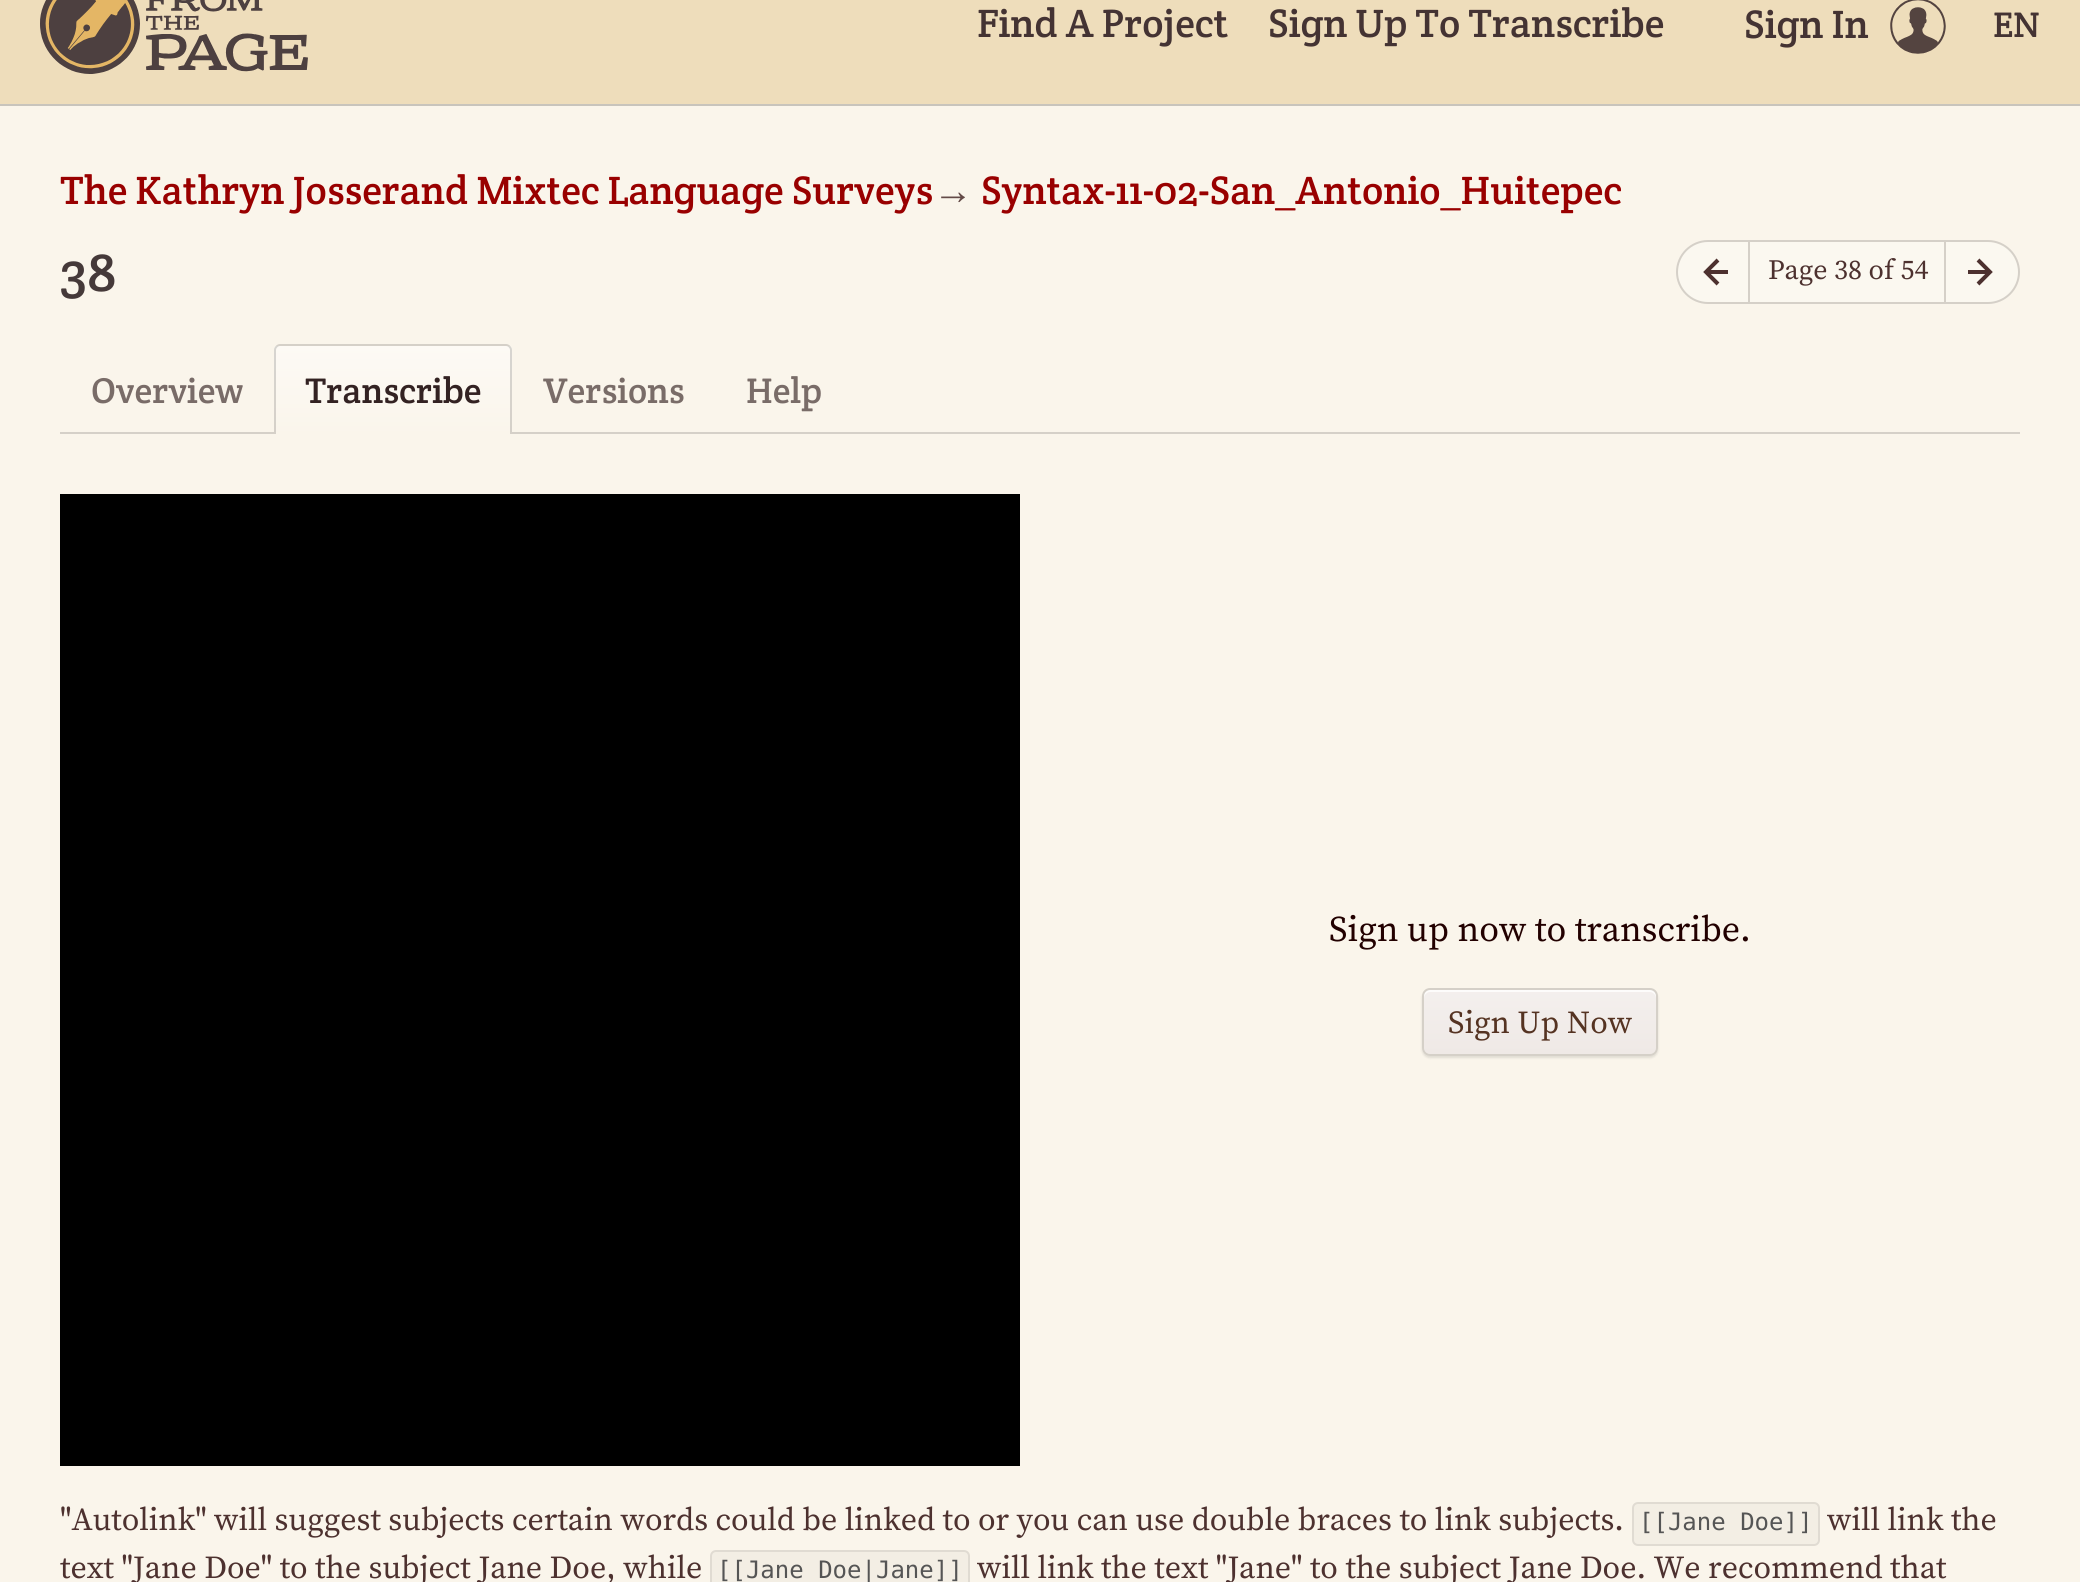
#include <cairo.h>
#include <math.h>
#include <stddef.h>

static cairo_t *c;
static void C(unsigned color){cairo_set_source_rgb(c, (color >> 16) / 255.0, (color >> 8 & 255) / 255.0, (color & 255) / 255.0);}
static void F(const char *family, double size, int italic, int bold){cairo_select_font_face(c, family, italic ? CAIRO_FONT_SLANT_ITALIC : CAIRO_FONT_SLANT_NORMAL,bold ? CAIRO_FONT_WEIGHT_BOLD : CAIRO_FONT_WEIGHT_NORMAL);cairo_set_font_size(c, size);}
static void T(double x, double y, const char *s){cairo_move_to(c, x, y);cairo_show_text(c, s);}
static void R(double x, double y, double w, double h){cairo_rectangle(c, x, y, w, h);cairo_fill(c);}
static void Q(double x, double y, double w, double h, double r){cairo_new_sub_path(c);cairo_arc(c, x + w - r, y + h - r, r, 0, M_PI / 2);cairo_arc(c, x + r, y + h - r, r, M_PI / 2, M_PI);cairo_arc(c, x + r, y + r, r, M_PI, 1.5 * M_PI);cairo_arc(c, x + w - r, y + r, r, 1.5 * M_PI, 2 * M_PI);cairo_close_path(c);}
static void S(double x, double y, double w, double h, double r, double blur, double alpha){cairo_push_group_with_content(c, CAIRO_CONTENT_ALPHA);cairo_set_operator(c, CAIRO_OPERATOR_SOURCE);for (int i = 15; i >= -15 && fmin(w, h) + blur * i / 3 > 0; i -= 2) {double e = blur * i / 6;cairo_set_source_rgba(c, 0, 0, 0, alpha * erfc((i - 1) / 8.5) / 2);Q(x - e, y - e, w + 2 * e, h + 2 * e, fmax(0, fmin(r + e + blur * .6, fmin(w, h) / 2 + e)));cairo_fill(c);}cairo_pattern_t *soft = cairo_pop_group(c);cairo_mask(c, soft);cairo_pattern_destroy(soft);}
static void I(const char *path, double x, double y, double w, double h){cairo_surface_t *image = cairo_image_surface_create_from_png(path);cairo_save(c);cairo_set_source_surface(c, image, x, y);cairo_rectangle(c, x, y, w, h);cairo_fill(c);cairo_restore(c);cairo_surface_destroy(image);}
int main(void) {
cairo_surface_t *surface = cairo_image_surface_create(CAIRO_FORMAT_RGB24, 2080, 1582);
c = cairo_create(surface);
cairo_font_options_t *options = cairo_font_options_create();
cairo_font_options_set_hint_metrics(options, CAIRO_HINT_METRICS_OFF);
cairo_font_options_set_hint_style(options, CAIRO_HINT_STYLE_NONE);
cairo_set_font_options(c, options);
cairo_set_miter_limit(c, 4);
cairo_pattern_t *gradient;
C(0xfaf5eb);
cairo_paint(c);
C(0xc8c4bc);
R(0,104,2080,2);
C(0xeeddbb);
R(0,0,2080,104);
I("1.png",40,0,268,74);
F("Crete Round",40,0,0);
C(0x443333);
T(977,37,"Find A Project");
T(1268,37,"Sign Up To Transcribe");
T(1744,38,"Sign In");
I("2.png",1890,0,56,54);
F("Crete Round",36,0,0);
T(1993,37,"EN");
F("Crete Round",40,0,0);
C(0x990000);
T(60,204,"The Kathryn Josserand Mixtec Language Surveys");
F("Liberation Serif",40,0,0);
C(0x634a47);
T(933,204,"→");
F("Crete Round",40,0,0);
C(0x990000);
T(981,204,"Syntax-11-02-San_Antonio_Huitepec");
F("Crete Round",56,0,0);
C(0x453939);
T(60,291,"38");
C(0xfbf8f0);
cairo_new_path(c);
cairo_move_to(c,1708,241);
cairo_line_to(c,1749,241);
cairo_line_to(c,1749,303);
cairo_line_to(c,1708,303);
cairo_curve_to(c,1691,303,1677,289,1677,272);
cairo_curve_to(c,1677,255,1691,241,1708,241);
cairo_close_path(c);
cairo_fill_preserve(c);
C(0xd5d0c8);
cairo_stroke(c);
I("3.png",1703,258,25,28);
C(0xfbf8f0);
R(1750,242,194,60);
C(0xd5d0c8);
R(1750,240,194,2);
R(1750,302,194,2);
F("Source Serif Pro",28,0,0);
C(0x4d312f);
T(1768,279,"Page 38 of 54");
C(0xfbf8f0);
cairo_new_path(c);
cairo_move_to(c,1945,241);
cairo_line_to(c,1988,241);
cairo_curve_to(c,2005,241,2019,255,2019,272);
cairo_curve_to(c,2019,289,2005,303,1988,303);
cairo_line_to(c,1945,303);
cairo_close_path(c);
cairo_fill_preserve(c);
C(0xd5d0c8);
cairo_stroke(c);
I("4.png",1968,258,25,28);
R(60,432,1960,2);
F("Crete Round",36,0,0);
C(0x796c68);
T(91,403,"Overview");
cairo_save(c);
cairo_new_path(c);
cairo_move_to(c,280,344);
cairo_line_to(c,506,344);
cairo_curve_to(c,509.5,344,512,346.5,512,350);
cairo_line_to(c,512,434);
cairo_line_to(c,274,434);
cairo_line_to(c,274,350);
cairo_curve_to(c,274,346.5,276.5,344,280,344);
cairo_close_path(c);
cairo_clip(c);
gradient = cairo_pattern_create_linear(393,346,393,434);
cairo_pattern_add_color_stop_rgba(gradient,0,0.992,0.98,0.961,1);
cairo_pattern_add_color_stop_rgba(gradient,1,0.98,0.961,0.922,1);
cairo_set_source(c,gradient);
cairo_pattern_destroy(gradient);
R(274,346,238,88);
cairo_restore(c);
cairo_set_source_rgba(c,0,0,0,0.15);
cairo_set_fill_rule(c,CAIRO_FILL_RULE_EVEN_ODD);
cairo_new_path(c);
cairo_move_to(c,280,344);
cairo_line_to(c,506,344);
cairo_curve_to(c,509,344,512,347,512,350);
cairo_line_to(c,512,434);
cairo_line_to(c,274,434);
cairo_line_to(c,274,350);
cairo_curve_to(c,274,347,277,344,280,344);
cairo_close_path(c);
cairo_move_to(c,280,346);
cairo_line_to(c,506,346);
cairo_curve_to(c,508,346,510,348,510,350);
cairo_line_to(c,510,434);
cairo_line_to(c,276,434);
cairo_line_to(c,276,350);
cairo_curve_to(c,276,348,278,346,280,346);
cairo_close_path(c);
cairo_fill(c);
C(0x332222);
T(305,403,"Transcribe");
C(0x796c68);
T(543,403,"Versions");
T(746,403,"Help");
C(0x000000);
R(60,494,960,972);
F("Source Serif Pro",36,0,0);
C(0x220000);
T(1329,941,"Sign up now to transcribe.");
cairo_save(c);
cairo_new_path(c);
cairo_move_to(c,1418,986);
cairo_line_to(c,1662,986);
cairo_line_to(c,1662,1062);
cairo_line_to(c,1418,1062);
cairo_close_path(c);
cairo_move_to(c,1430,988);
cairo_line_to(c,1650,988);
cairo_curve_to(c,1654.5,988,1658,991.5,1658,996);
cairo_line_to(c,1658,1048);
cairo_curve_to(c,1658,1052.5,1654.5,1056,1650,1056);
cairo_line_to(c,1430,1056);
cairo_curve_to(c,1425.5,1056,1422,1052.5,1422,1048);
cairo_line_to(c,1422,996);
cairo_curve_to(c,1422,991.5,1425.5,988,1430,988);
cairo_close_path(c);
cairo_clip(c);
C(0x000000);
S(1422,990,236,68,8,1,.1);
cairo_restore(c);
C(0xefe9e6);
Q(1424,990,232,64,6);
cairo_fill(c);
gradient = cairo_pattern_create_linear(1540,990,1540,1054);
cairo_pattern_add_color_stop_rgba(gradient,0,1,1,1,.3);
cairo_pattern_add_color_stop_rgba(gradient,1,1,1,1,0);
cairo_set_source(c,gradient);
cairo_pattern_destroy(gradient);
Q(1424,990,232,64,6);
cairo_fill(c);
C(0xfdfcfb);
cairo_set_fill_rule(c,CAIRO_FILL_RULE_WINDING);
cairo_new_path(c);
cairo_move_to(c,1430,992);
cairo_line_to(c,1650,992);
cairo_curve_to(c,1653,992,1656,995,1656,998);
cairo_line_to(c,1656,996);
cairo_curve_to(c,1656,993,1653,990,1650,990);
cairo_line_to(c,1430,990);
cairo_curve_to(c,1427,990,1424,993,1424,996);
cairo_line_to(c,1424,998);
cairo_curve_to(c,1424,995,1427,992,1430,992);
cairo_close_path(c);
cairo_fill(c);
Q(1423,989,234,66,7);
cairo_set_source_rgba(c,0,0,0,0.15);
cairo_stroke(c);
F("Source Serif Pro",32,0,0);
C(0x553322);
T(1448,1033,"Sign Up Now");
C(0x4d312f);
T(60,1530,"\"Autolink\" will suggest subjects certain words could be linked to or you can use double braces to link subjects.");
C(0xf3eee4);
Q(1633,1503,186,42,5);
cairo_fill_preserve(c);
C(0xe0dbd2);
cairo_stroke(c);
F("DejaVu Sans Mono",24,0,0);
C(0x555555);
T(1639,1530,"[[Jane Doe]]");
F("Source Serif Pro",32,0,0);
C(0x4d312f);
T(1827,1530,"will link the");
T(60,1578,"text \"Jane Doe\" to the subject Jane Doe, while");
C(0xf3eee4);
Q(711,1551,258,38,5);
cairo_fill_preserve(c);
C(0xe0dbd2);
cairo_stroke(c);
F("DejaVu Sans Mono",24,0,0);
C(0x555555);
T(717,1578,"[[Jane Doe|Jane]]");
F("Source Serif Pro",32,0,0);
C(0x4d312f);
T(977,1578,"will link the text \"Jane\" to the subject Jane Doe. We recommend that");
cairo_surface_write_to_png(surface, "o.png");
cairo_font_options_destroy(options);
cairo_destroy(c);
cairo_surface_destroy(surface);
return 0;
}
